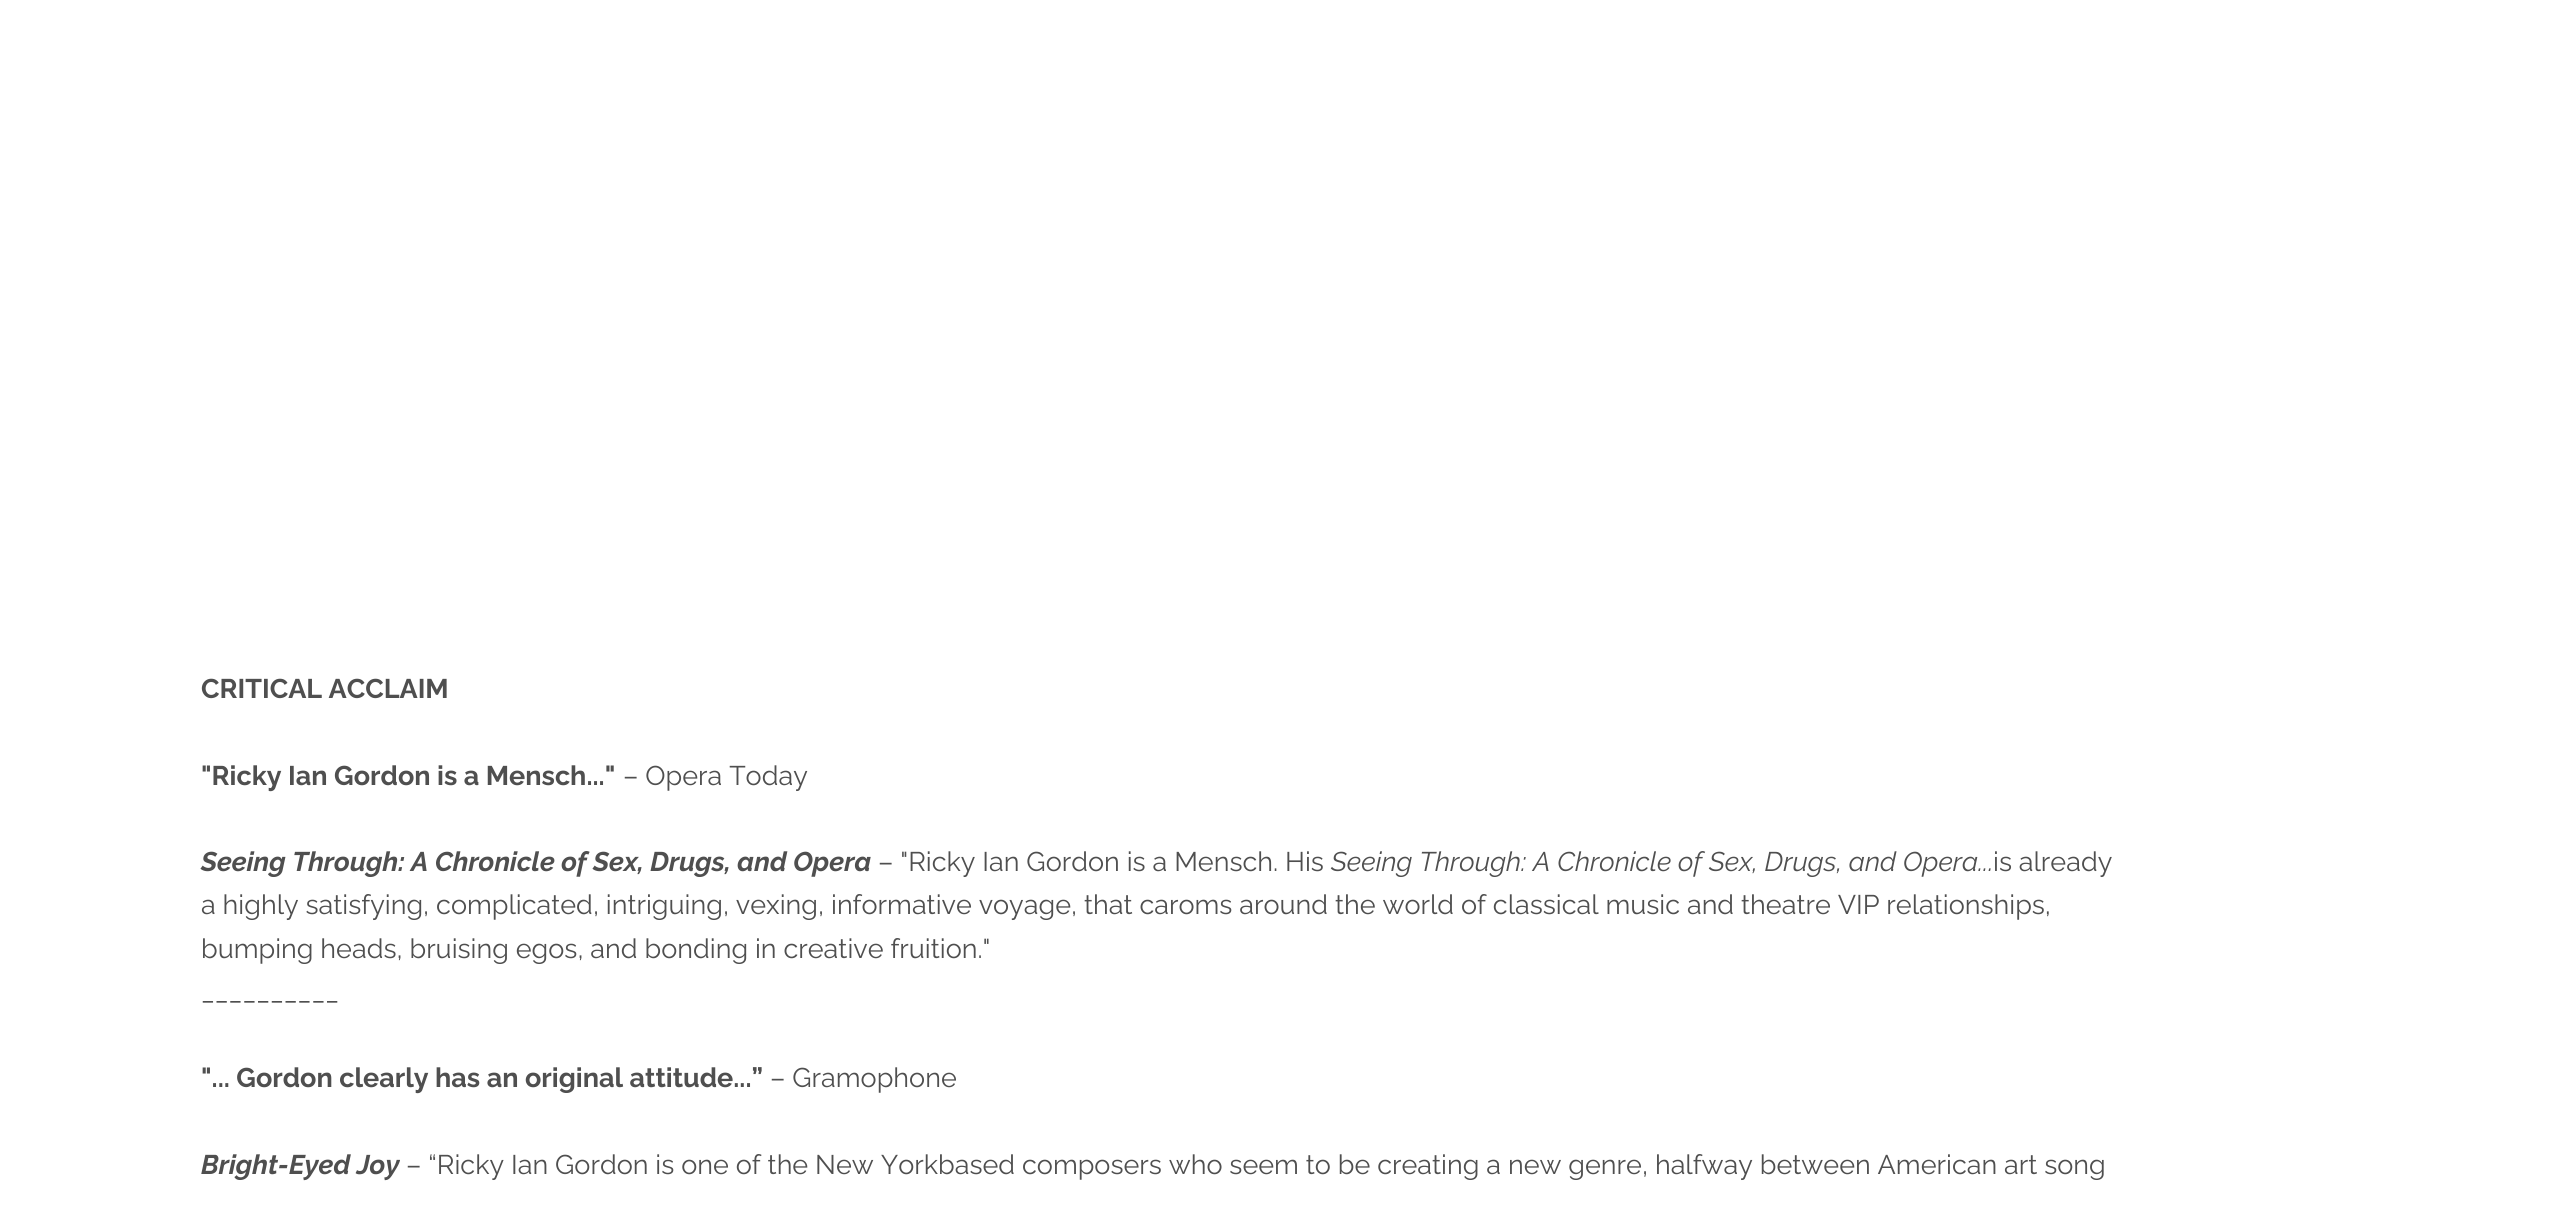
#include <cairo.h>
#include <math.h>
#include <stddef.h>

static cairo_t *c;
static void C(unsigned color){cairo_set_source_rgb(c, (color >> 16) / 255.0, (color >> 8 & 255) / 255.0, (color & 255) / 255.0);}
static void F(const char *family, double size, int italic, int bold){cairo_select_font_face(c, family, italic ? CAIRO_FONT_SLANT_ITALIC : CAIRO_FONT_SLANT_NORMAL,bold ? CAIRO_FONT_WEIGHT_BOLD : CAIRO_FONT_WEIGHT_NORMAL);cairo_set_font_size(c, size);}
static void T(double x, double y, const char *s){cairo_move_to(c, x, y);cairo_show_text(c, s);}
int main(void) {
cairo_surface_t *surface = cairo_image_surface_create(CAIRO_FORMAT_RGB24, 2552, 1207);
c = cairo_create(surface);
cairo_font_options_t *options = cairo_font_options_create();
cairo_font_options_set_hint_metrics(options, CAIRO_HINT_METRICS_OFF);
cairo_font_options_set_hint_style(options, CAIRO_HINT_STYLE_NONE);
cairo_set_font_options(c, options);
cairo_set_miter_limit(c, 4);
C(0xffffff);
cairo_paint(c);
F("Raleway",27,0,1);
C(0x4f4f4f);
T(201,698,"CRITICAL ACCLAIM");
T(201,785,"\"Ricky Ian Gordon is a Mensch...\"");
F("Raleway",27,0,0);
T(623,785,"– Opera Today");
F("Raleway",27,1,1);
T(201,871,"Seeing Through: A Chronicle of Sex, Drugs, and Opera");
F("Raleway",27,0,0);
T(878,871,"– \"Ricky Ian Gordon is a Mensch. His");
F("Raleway",27,1,0);
T(1331,871,"Seeing Through: A Chronicle of Sex, Drugs, and Opera...");
F("Raleway",27,0,0);
T(1993,871,"is already");
T(201,914,"a highly satisfying, complicated, intriguing, vexing, informative voyage, that caroms around the world of classical music and theatre VIP relationships,");
T(201,958,"bumping heads, bruising egos, and bonding in creative fruition.\"");
T(201,1001,"__________");
F("Raleway",27,0,1);
T(201,1087,"\"... Gordon clearly has an original attitude...”");
F("Raleway",27,0,0);
T(770,1087,"– Gramophone");
F("Raleway",27,1,1);
T(201,1174,"Bright-Eyed Joy");
F("Raleway",27,0,0);
T(406,1174,"– “Ricky Ian Gordon is one of the New Yorkbased composers who seem to be creating a new genre‚ halfway between American art song");
cairo_surface_write_to_png(surface, "o.png");
cairo_font_options_destroy(options);
cairo_destroy(c);
cairo_surface_destroy(surface);
return 0;
}
